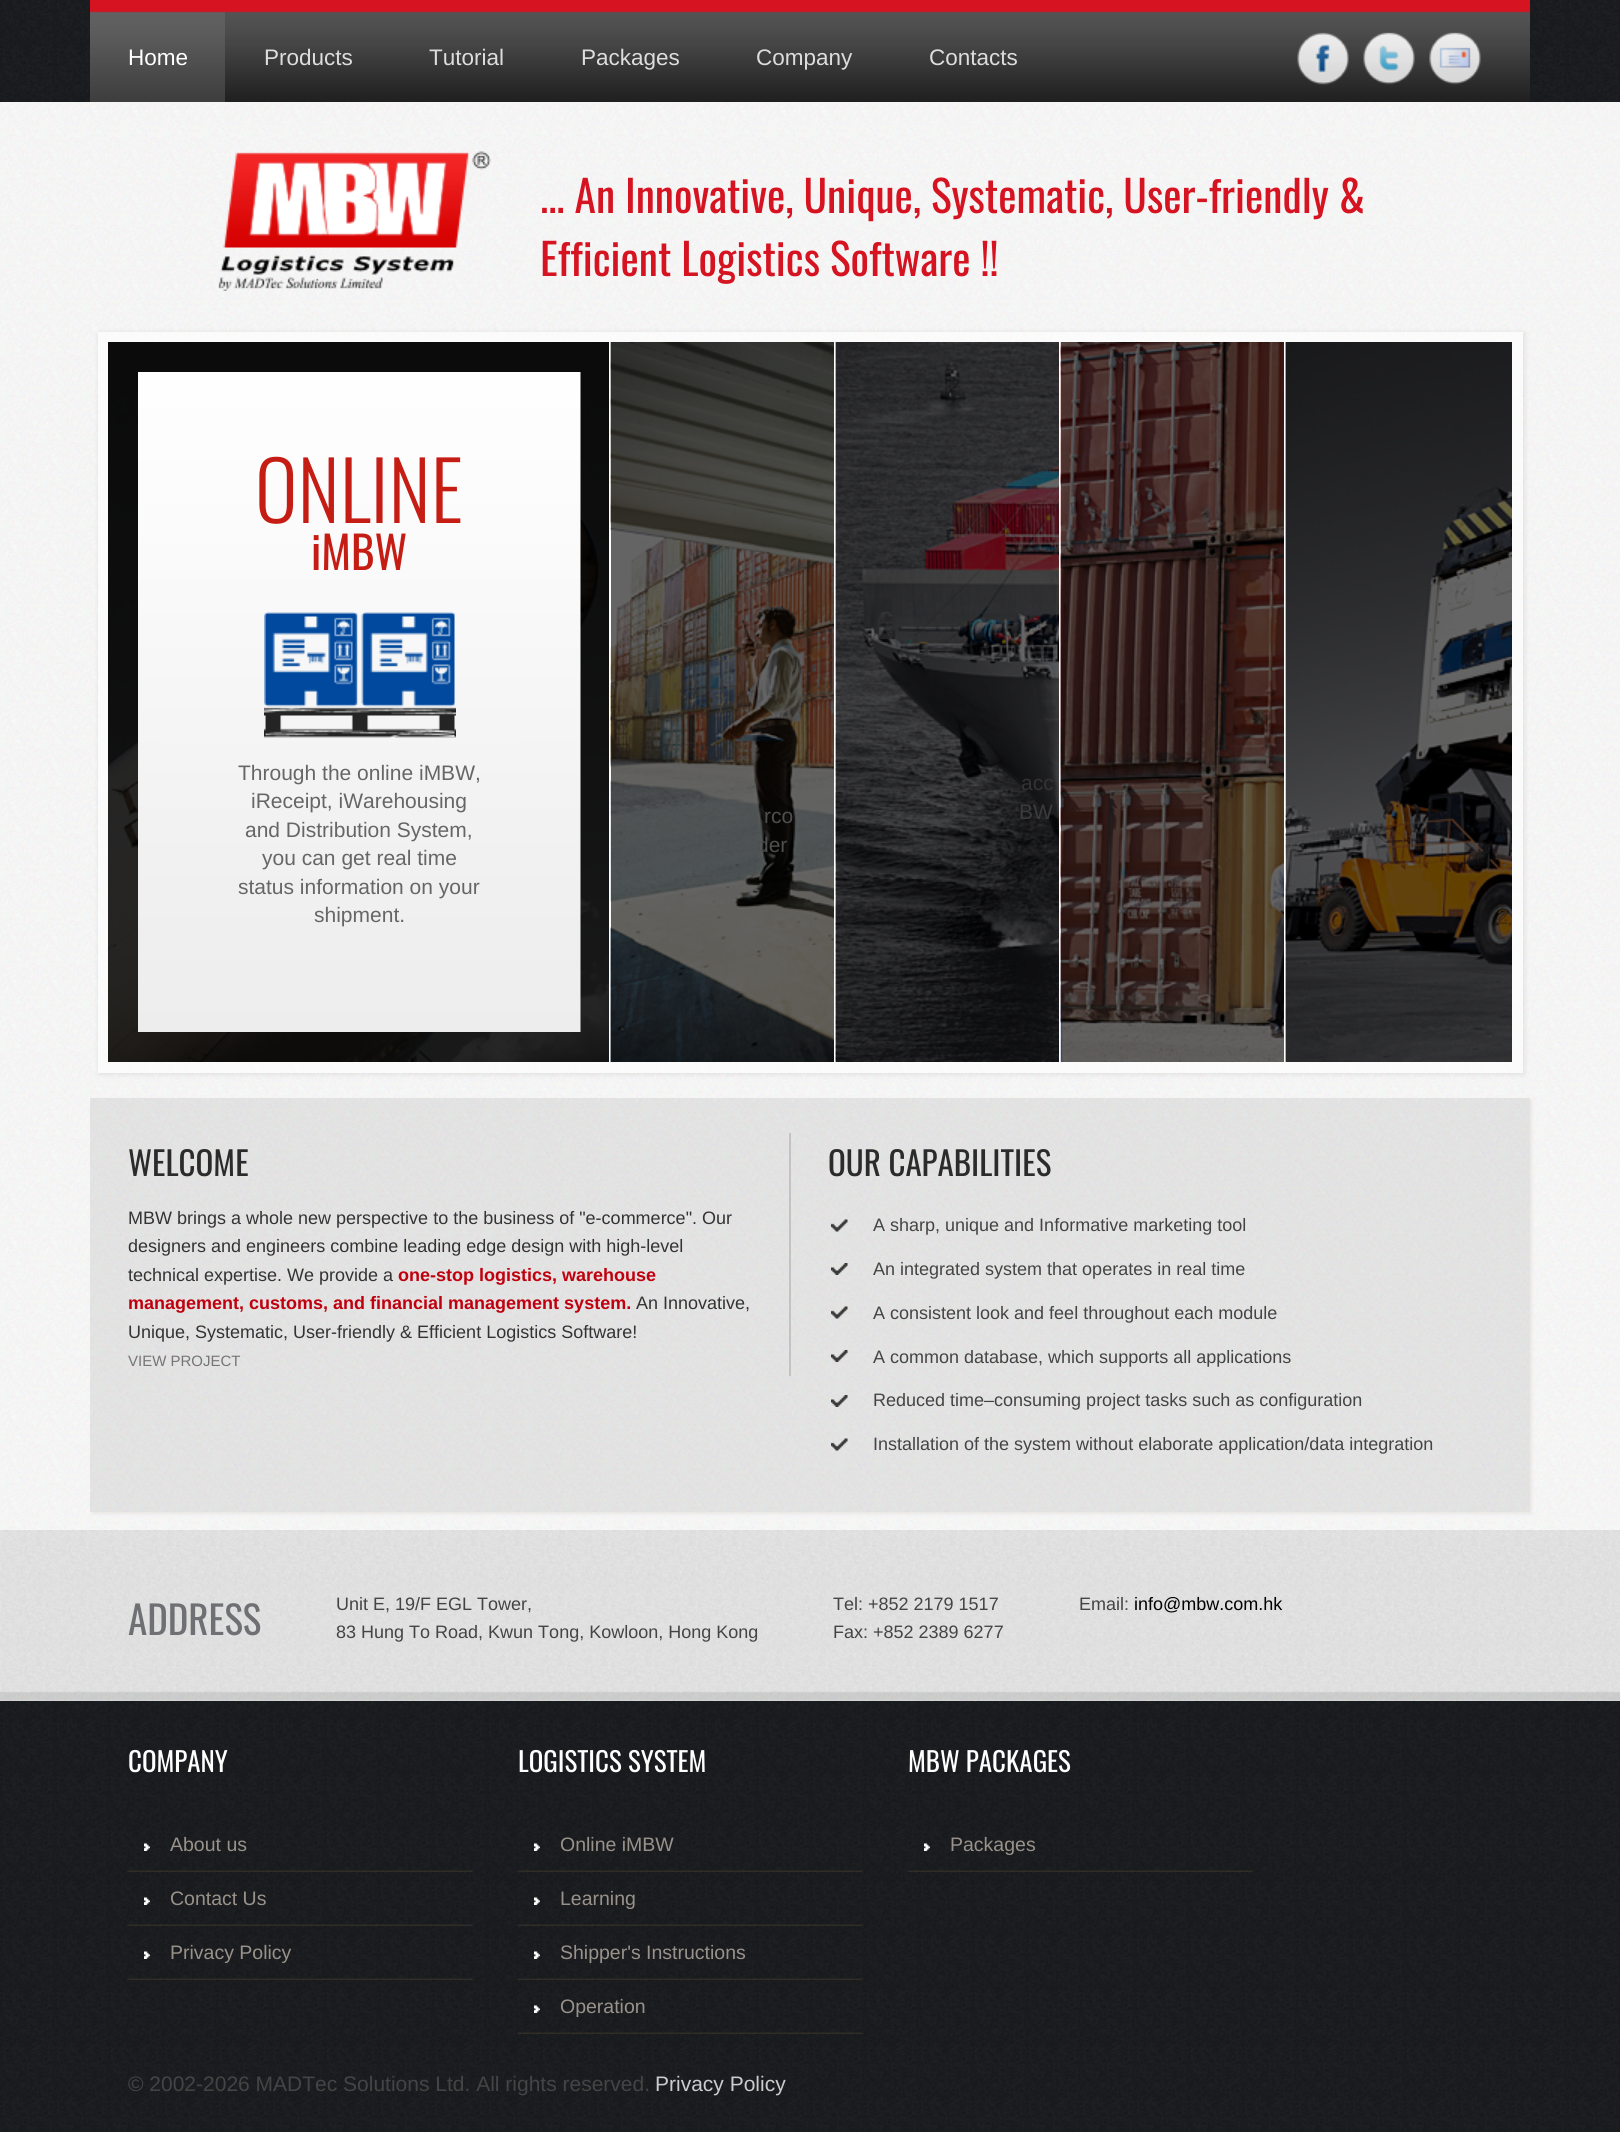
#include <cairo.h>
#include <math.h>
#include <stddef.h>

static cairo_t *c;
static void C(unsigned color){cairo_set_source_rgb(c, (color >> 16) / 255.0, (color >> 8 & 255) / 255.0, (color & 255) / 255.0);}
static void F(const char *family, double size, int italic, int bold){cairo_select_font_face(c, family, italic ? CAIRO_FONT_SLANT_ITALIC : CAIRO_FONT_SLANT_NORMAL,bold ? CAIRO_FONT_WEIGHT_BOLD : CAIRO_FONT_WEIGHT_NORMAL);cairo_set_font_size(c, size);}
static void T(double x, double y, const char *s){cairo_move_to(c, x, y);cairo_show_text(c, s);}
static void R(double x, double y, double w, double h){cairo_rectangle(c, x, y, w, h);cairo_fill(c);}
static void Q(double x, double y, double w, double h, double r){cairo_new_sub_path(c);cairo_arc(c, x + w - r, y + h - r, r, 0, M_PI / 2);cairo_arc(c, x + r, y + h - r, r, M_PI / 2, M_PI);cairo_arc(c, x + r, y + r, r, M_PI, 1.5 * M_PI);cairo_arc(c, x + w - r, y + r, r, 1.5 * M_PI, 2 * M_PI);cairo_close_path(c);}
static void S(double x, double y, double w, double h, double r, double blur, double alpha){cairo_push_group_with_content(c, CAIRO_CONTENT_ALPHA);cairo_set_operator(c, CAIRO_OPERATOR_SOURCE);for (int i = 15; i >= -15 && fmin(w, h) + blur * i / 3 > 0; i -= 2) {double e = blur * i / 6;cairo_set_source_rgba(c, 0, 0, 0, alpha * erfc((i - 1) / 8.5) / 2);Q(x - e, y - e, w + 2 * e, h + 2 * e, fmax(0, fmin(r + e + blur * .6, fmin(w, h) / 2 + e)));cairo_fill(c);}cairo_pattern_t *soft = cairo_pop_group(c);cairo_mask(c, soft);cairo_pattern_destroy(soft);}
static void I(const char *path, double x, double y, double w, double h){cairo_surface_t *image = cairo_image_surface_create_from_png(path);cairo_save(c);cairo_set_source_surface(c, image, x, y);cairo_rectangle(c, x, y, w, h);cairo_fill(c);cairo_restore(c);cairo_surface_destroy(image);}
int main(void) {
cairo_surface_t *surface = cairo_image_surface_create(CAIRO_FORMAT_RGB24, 1620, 2132);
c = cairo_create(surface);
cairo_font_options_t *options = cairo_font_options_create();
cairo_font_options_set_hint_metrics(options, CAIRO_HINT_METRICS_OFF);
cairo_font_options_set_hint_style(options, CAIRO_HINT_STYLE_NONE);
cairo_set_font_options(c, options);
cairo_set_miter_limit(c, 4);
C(0xffffff);
cairo_paint(c);
I("1.png",0,0,1620,2132);
I("2.png",90,0,1440,102);
I("3.png",90,12,135,90);
F("Liberation Sans",22.5,0,0);
C(0xffffff);
T(128,65,"Home");
C(0xdddddd);
T(264,65,"Products");
T(429,65,"Tutorial");
T(581,65,"Packages");
T(756,65,"Company");
T(929,65,"Contacts");
I("4.png",1297,32,52,53);
I("5.png",1363,32,52,53);
I("6.png",1429,32,52,53);
I("7.png",0,102,1620,1428);
I("8.png",218,151,273,140);
F("Oswald",43.5,0,0);
C(0xd61321);
T(540,213,"... An Innovative, Unique, Systematic, User-friendly &");
T(540,276,"Efficient Logistics Software !!");
cairo_save(c);
cairo_set_fill_rule(c,CAIRO_FILL_RULE_EVEN_ODD);
cairo_new_path(c);
cairo_move_to(c,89,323);
cairo_line_to(c,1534,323);
cairo_line_to(c,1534,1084);
cairo_line_to(c,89,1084);
cairo_close_path(c);
cairo_move_to(c,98,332);
cairo_line_to(c,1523,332);
cairo_line_to(c,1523,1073);
cairo_line_to(c,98,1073);
cairo_close_path(c);
cairo_clip(c);
C(0x000000);
S(99,333,1425,741,0,3,.1);
cairo_restore(c);
cairo_rectangle(c,103.5,337.5,1414,730);
cairo_set_source_rgba(c,1,1,1,0.6);
cairo_set_line_width(c,11);
cairo_stroke(c);
I("9.png",108,342,501,720);
cairo_set_source_rgba(c,0,0,0,0.85);
R(108,342,501,720);
I("10.png",138,372,443,660);
F("Oswald Light",81,0,0);
C(0xc51d14);
T(255,523,"ONLINE");
F("Oswald",45,0,0);
T(311,570,"iMBW");
I("11.png",264,612,192,126);
F("Liberation Sans",21,0,0);
C(0x666666);
T(238,780,"Through the online iMBW,");
T(251,808,"iReceipt, iWarehousing");
T(245,837,"and Distribution System,");
T(262,865,"you can get real time");
T(238,894,"status information on your");
T(314,922,"shipment.");
cairo_save(c);
cairo_rectangle(c,108,342,1404,720);
cairo_clip(c);
cairo_rectangle(c,610,342,504,721);
C(0xffffff);
cairo_set_line_width(c,2);
cairo_stroke(c);
cairo_restore(c);
I("12.png",610,342,224,720);
cairo_save(c);
cairo_rectangle(c,108,342,1404,720);
cairo_clip(c);
cairo_rectangle(c,835,342,504,721);
C(0xffffff);
cairo_set_line_width(c,2);
cairo_stroke(c);
cairo_restore(c);
I("13.png",835,342,224,720);
cairo_save(c);
cairo_rectangle(c,108,342,1404,720);
cairo_clip(c);
cairo_rectangle(c,1060,342,504,721);
C(0xffffff);
cairo_set_line_width(c,2);
cairo_stroke(c);
cairo_restore(c);
I("14.png",1060,342,224,720);
C(0x3b2e2b);
T(1194,763,".");
cairo_save(c);
cairo_rectangle(c,108,342,1404,720);
cairo_clip(c);
cairo_rectangle(c,1285,342,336,721);
C(0xffffff);
cairo_set_line_width(c,2);
cairo_stroke(c);
cairo_restore(c);
I("15.png",1285,342,227,720);
C(0x412c0c);
T(1497,924,"2");
C(0x333333);
T(1021,790,"acc");
C(0x3b3b3d);
T(1019,819,"BW");
C(0x4e4f4e);
T(764,823,"rco");
T(757,852,"der");
C(0xeae7e5);
S(92,1100,1440,414,0,1.5,1);
I("16.png",90,1098,1440,414);
C(0xc3c3c3);
R(789,1133,2,243);
F("Oswald",33,0,0);
C(0x2b2b2b);
T(128,1176,"WELCOME");
F("Liberation Sans",18,0,0);
C(0x333333);
T(128,1224,"MBW brings a whole new perspective to the business of \"e-commerce\". Our");
T(128,1252,"designers and engineers combine leading edge design with high-level");
T(128,1281,"technical expertise. We provide a");
F("Liberation Sans",18,0,1);
C(0xc0000e);
T(398,1281,"one-stop logistics, warehouse");
T(128,1309,"management, customs, and financial management system.");
F("Liberation Sans",18,0,0);
C(0x333333);
T(636,1309,"An Innovative,");
T(128,1338,"Unique, Systematic, User-friendly & Efficient Logistics Software!");
F("Liberation Sans",15,0,0);
C(0x757575);
T(128,1366,"VIEW PROJECT");
F("Oswald",33,0,0);
C(0x2b2b2b);
T(828,1176,"OUR CAPABILITIES");
I("17.png",831,1219,17,13);
F("Liberation Sans",18,0,0);
C(0x444444);
T(873,1231,"A sharp, unique and Informative marketing tool");
I("18.png",831,1263,17,12);
T(873,1275,"An integrated system that operates in real time");
I("19.png",831,1306,17,13);
T(873,1319,"A consistent look and feel throughout each module");
I("20.png",831,1350,17,12);
T(873,1363,"A common database, which supports all applications");
I("21.png",831,1395,17,12);
T(873,1406,"Reduced time–consuming project tasks such as configuration");
I("22.png",831,1438,17,13);
T(873,1450,"Installation of the system without elaborate application/data integration");
I("23.png",0,1530,1620,171);
F("Oswald",39,0,0);
C(0x6e7073);
T(128,1635,"ADDRESS");
F("Liberation Sans",18,0,0);
C(0x444444);
T(336,1610,"Unit E, 19/F EGL Tower,");
T(336,1638,"83 Hung To Road, Kwun Tong, Kowloon, Hong Kong");
T(833,1610,"Tel: +852 2179 1517");
T(833,1638,"Fax: +852 2389 6277");
T(1079,1610,"Email:");
C(0x000000);
T(1134,1610,"info@mbw.com.hk");
F("Oswald",27,0,0);
C(0xffffff);
T(128,1772,"COMPANY");
I("24.png",127,1870,346,2);
I("25.png",144,1843,6,8);
F("Liberation Sans",19.5,0,0);
C(0x99928a);
T(170,1851,"About us");
I("26.png",127,1924,346,2);
I("25.png",144,1897,6,8);
T(170,1905,"Contact Us");
I("27.png",127,1978,346,2);
I("25.png",144,1951,6,8);
T(170,1959,"Privacy Policy");
F("Oswald",27,0,0);
C(0xffffff);
T(518,1772,"LOGISTICS SYSTEM");
I("28.png",517,1870,346,2);
I("29.png",534,1843,6,8);
F("Liberation Sans",19.5,0,0);
C(0x99928a);
T(560,1851,"Online iMBW");
I("30.png",517,1924,346,2);
I("29.png",534,1897,6,8);
T(560,1905,"Learning");
I("31.png",517,1978,346,2);
I("29.png",534,1951,6,8);
T(560,1959,"Shipper's Instructions");
I("32.png",517,2032,346,2);
I("29.png",534,2005,6,8);
T(560,2013,"Operation");
F("Oswald",27,0,0);
C(0xffffff);
T(908,1772,"MBW PACKAGES");
I("33.png",907,1870,346,2);
I("34.png",924,1843,6,8);
F("Liberation Sans",19.5,0,0);
C(0x99928a);
T(950,1851,"Packages");
F("Liberation Sans",21,0,0);
C(0x444444);
T(128,2091,"© 2002-2026 MADTec Solutions Ltd. All rights reserved.");
C(0xcccccc);
T(655,2091,"Privacy Policy");
cairo_surface_write_to_png(surface, "o.png");
cairo_font_options_destroy(options);
cairo_destroy(c);
cairo_surface_destroy(surface);
return 0;
}
